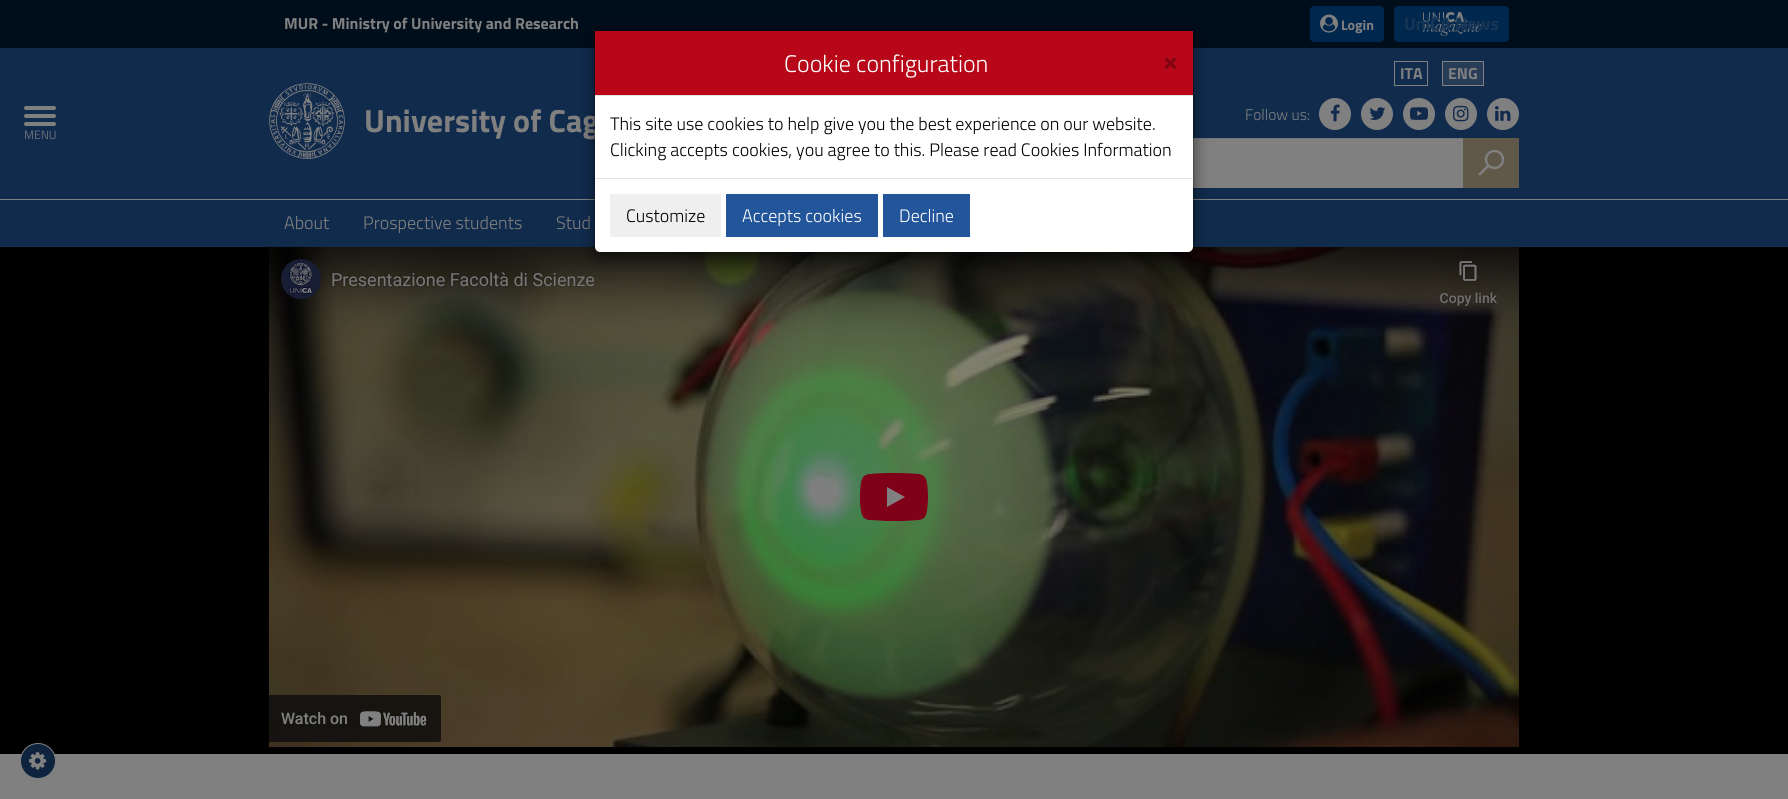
#include <cairo.h>
#include <math.h>
#include <stddef.h>

static cairo_t *c;
static void C(unsigned color){cairo_set_source_rgb(c, (color >> 16) / 255.0, (color >> 8 & 255) / 255.0, (color & 255) / 255.0);}
static void F(const char *family, double size, int italic, int bold){cairo_select_font_face(c, family, italic ? CAIRO_FONT_SLANT_ITALIC : CAIRO_FONT_SLANT_NORMAL,bold ? CAIRO_FONT_WEIGHT_BOLD : CAIRO_FONT_WEIGHT_NORMAL);cairo_set_font_size(c, size);}
static void T(double x, double y, const char *s){cairo_move_to(c, x, y);cairo_show_text(c, s);}
static void R(double x, double y, double w, double h){cairo_rectangle(c, x, y, w, h);cairo_fill(c);}
static void Q(double x, double y, double w, double h, double r){cairo_new_sub_path(c);cairo_arc(c, x + w - r, y + h - r, r, 0, M_PI / 2);cairo_arc(c, x + r, y + h - r, r, M_PI / 2, M_PI);cairo_arc(c, x + r, y + r, r, M_PI, 1.5 * M_PI);cairo_arc(c, x + w - r, y + r, r, 1.5 * M_PI, 2 * M_PI);cairo_close_path(c);}
static void S(double x, double y, double w, double h, double r, double blur, double alpha){cairo_push_group_with_content(c, CAIRO_CONTENT_ALPHA);cairo_set_operator(c, CAIRO_OPERATOR_SOURCE);for (int i = 15; i >= -15 && fmin(w, h) + blur * i / 3 > 0; i -= 2) {double e = blur * i / 6;cairo_set_source_rgba(c, 0, 0, 0, alpha * erfc((i - 1) / 8.5) / 2);Q(x - e, y - e, w + 2 * e, h + 2 * e, fmax(0, fmin(r + e + blur * .6, fmin(w, h) / 2 + e)));cairo_fill(c);}cairo_pattern_t *soft = cairo_pop_group(c);cairo_mask(c, soft);cairo_pattern_destroy(soft);}
static void I(const char *path, double x, double y, double w, double h){cairo_surface_t *image = cairo_image_surface_create_from_png(path);cairo_save(c);cairo_set_source_surface(c, image, x, y);cairo_rectangle(c, x, y, w, h);cairo_fill(c);cairo_restore(c);cairo_surface_destroy(image);}
int main(void) {
cairo_surface_t *surface = cairo_image_surface_create(CAIRO_FORMAT_RGB24, 1788, 799);
c = cairo_create(surface);
cairo_font_options_t *options = cairo_font_options_create();
cairo_font_options_set_hint_metrics(options, CAIRO_HINT_METRICS_OFF);
cairo_font_options_set_hint_style(options, CAIRO_HINT_STYLE_NONE);
cairo_set_font_options(c, options);
cairo_set_miter_limit(c, 4);
C(0x808080);
cairo_paint(c);
C(0x112b4d);
R(0,48,1788,199);
C(0x000d1a);
R(0,0,1788,48);
F("Titillium Web",16,0,1);
C(0x808080);
T(284,29,"MUR - Ministry of University and Research");
C(0x00274d);
Q(1310,6,74,36,4);
cairo_fill(c);
I("1.png",1320,14,18,19);
F("Titillium Web",14,0,1);
C(0x808080);
T(1341,30,"Login");
C(0x00274d);
Q(1394,6,115,36,4);
cairo_fill(c);
I("2.png",1423,12,58,24);
F("Titillium Web",18,0,1);
C(0x173656);
T(1404,30,"UniCA News");
C(0x808080);
Q(24,106,32,4,2);
cairo_fill(c);
Q(24,114,32,4,2);
cairo_fill(c);
Q(24,122,32,4,2);
cairo_fill(c);
F("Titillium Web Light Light",12,0,0);
T(24,139,"MENU");
cairo_rectangle(c,1394.5,61.5,33,24);
cairo_set_line_width(c,1);
cairo_stroke(c);
F("Titillium Web",16,0,1);
T(1400,79,"ITA");
C(0x273c57);
cairo_rectangle(c,1442.5,61.5,41,24);
cairo_fill_preserve(c);
C(0x808080);
cairo_stroke(c);
T(1448,79,"ENG");
F("Titillium Web Light Light",15.5,0,0);
T(1245,120,"Follow us:");
cairo_new_path(c);
cairo_arc(c,1335,114,16,0,2 * M_PI);
cairo_fill(c);
I("3.png",1330,104,10,18);
cairo_arc(c,1377,114,16,0,2 * M_PI);
cairo_fill(c);
I("4.png",1369,107,17,13);
cairo_arc(c,1419,114,16,0,2 * M_PI);
cairo_fill(c);
I("5.png",1410,107,18,13);
cairo_arc(c,1461,114,16,0,2 * M_PI);
cairo_fill(c);
I("6.png",1453,105,16,17);
cairo_arc(c,1503,114,16,0,2 * M_PI);
cairo_fill(c);
I("7.png",1495,106,16,15);
R(1193,139,270,49);
C(0x767676);
R(1193,138,271,1);
C(0x605949);
R(1463,138,56,50);
cairo_new_path(c);
cairo_move_to(c,1479,175);
cairo_line_to(c,1488.5,165.5);
C(0x808080);
cairo_set_line_width(c,2.4);
cairo_stroke(c);
cairo_save(c);
cairo_rectangle(c,1478,150,26,26);
cairo_clip(c);
cairo_arc(c,1494.5,159.5,8.5,0,2 * M_PI);
cairo_stroke(c);
cairo_restore(c);
I("8.png",269,83,76,76);
F("Titillium Web",32,0,1);
T(364,132,"University of Cag");
R(0,199,1788,1);
F("Titillium Web Light Light",18,0,0);
T(284,229,"About");
T(363,229,"Prospective students");
T(556,229,"Stud");
C(0x000000);
R(0,247,1788,507);
I("9.png",269,247,1250,500);
C(0x000000);
S(594,35,600,223,6,7.5,.5);
C(0xffffff);
Q(595,31,598,221,5);
cairo_fill(c);
Q(594.5,30.5,599,222,5.5);
cairo_set_source_rgba(c,0,0,0,0.2);
cairo_set_line_width(c,1);
cairo_stroke(c);
C(0xb70718);
R(595,31,598,64);
C(0xe5e5e5);
R(595,95,598,1);
F("Titillium Web Light Light",24,0,0);
C(0xffffff);
T(784,72,"Cookie configuration");
F("Titillium Web",27,0,1);
C(0x800511);
T(1163,70,"×");
F("Titillium Web Light Light",18,0,0);
C(0x000000);
T(610,130,"This site use cookies to help give you the best experience on our website.");
T(610,156,"Clicking accepts cookies, you agree to this. Please read Cookies Information");
C(0xe5e5e5);
R(595,178,598,1);
C(0xefefef);
R(610,194,111,43);
C(0x000000);
T(626,222,"Customize");
C(0x225599);
R(726,194,152,43);
C(0xffffff);
T(742,222,"Accepts cookies");
C(0x225599);
R(883,194,87,43);
C(0xffffff);
T(899,222,"Decline");
C(0x0e233e);
cairo_new_path(c);
cairo_arc(c,38,761,17.5,0,2 * M_PI);
cairo_fill_preserve(c);
C(0x808080);
cairo_stroke(c);
I("10.png",29,752,18,18);
cairo_surface_write_to_png(surface, "o.png");
cairo_font_options_destroy(options);
cairo_destroy(c);
cairo_surface_destroy(surface);
return 0;
}
